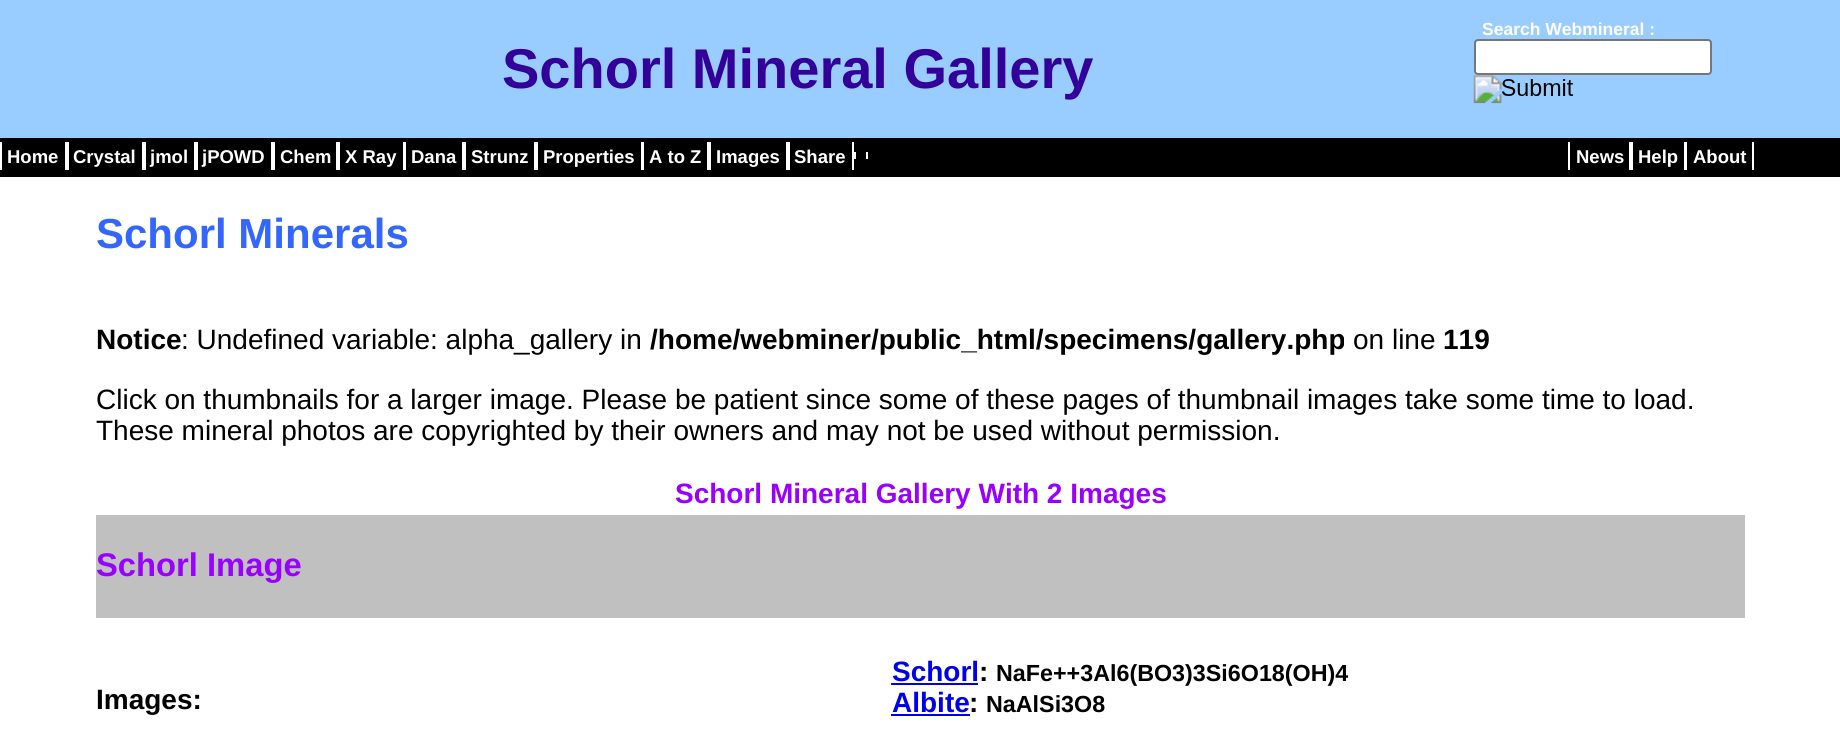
#include <cairo.h>
#include <math.h>
#include <stddef.h>

static cairo_t *c;
static void C(unsigned color){cairo_set_source_rgb(c, (color >> 16) / 255.0, (color >> 8 & 255) / 255.0, (color & 255) / 255.0);}
static void F(const char *family, double size, int italic, int bold){cairo_select_font_face(c, family, italic ? CAIRO_FONT_SLANT_ITALIC : CAIRO_FONT_SLANT_NORMAL,bold ? CAIRO_FONT_WEIGHT_BOLD : CAIRO_FONT_WEIGHT_NORMAL);cairo_set_font_size(c, size);}
static void T(double x, double y, const char *s){cairo_move_to(c, x, y);cairo_show_text(c, s);}
static void R(double x, double y, double w, double h){cairo_rectangle(c, x, y, w, h);cairo_fill(c);}
static void Q(double x, double y, double w, double h, double r){cairo_new_sub_path(c);cairo_arc(c, x + w - r, y + h - r, r, 0, M_PI / 2);cairo_arc(c, x + r, y + h - r, r, M_PI / 2, M_PI);cairo_arc(c, x + r, y + r, r, M_PI, 1.5 * M_PI);cairo_arc(c, x + w - r, y + r, r, 1.5 * M_PI, 2 * M_PI);cairo_close_path(c);}
static void I(const char *path, double x, double y, double w, double h){cairo_surface_t *image = cairo_image_surface_create_from_png(path);cairo_save(c);cairo_set_source_surface(c, image, x, y);cairo_rectangle(c, x, y, w, h);cairo_fill(c);cairo_restore(c);cairo_surface_destroy(image);}
int main(void) {
cairo_surface_t *surface = cairo_image_surface_create(CAIRO_FORMAT_RGB24, 1840, 748);
c = cairo_create(surface);
cairo_font_options_t *options = cairo_font_options_create();
cairo_font_options_set_hint_metrics(options, CAIRO_HINT_METRICS_OFF);
cairo_font_options_set_hint_style(options, CAIRO_HINT_STYLE_NONE);
cairo_set_font_options(c, options);
cairo_set_miter_limit(c, 4);
C(0xffffff);
cairo_paint(c);
C(0x99ccff);
R(0,0,1840,138);
C(0x000000);
R(0,138,1840,39);
F("Liberation Sans",17.5,0,1);
C(0xffffff);
T(1482,35,"Search Webmineral :");
Q(1475,40,236,34,3);
cairo_fill_preserve(c);
C(0x767676);
cairo_stroke(c);
I("1.png",1473,75,100,29);
F("Liberation Sans",56,0,1);
C(0x330099);
T(502,88,"Schorl Mineral Gallery");
C(0xffffff);
R(65,142,4,28);
R(0,142,2,28);
F("Liberation Sans",18.5,0,1);
T(7,163,"Home");
R(142,142,4,28);
T(73,163,"Crystal");
R(194,142,4,28);
T(150,163,"jmol");
R(271,142,4,28);
T(202,163,"jPOWD");
R(336,142,4,28);
T(280,163,"Chem");
R(403,142,3,28);
T(345,163,"X Ray");
R(462,142,4,28);
T(411,163,"Dana");
R(534,142,4,28);
T(471,163,"Strunz");
R(641,142,3,28);
T(543,163,"Properties");
R(707,142,4,28);
T(649,163,"A to Z");
R(786,142,4,28);
T(716,163,"Images");
R(852,142,2,28);
T(794,163,"Share");
R(866,152,2,7);
R(854,152,2,7);
R(1629,142,4,28);
R(1568,142,2,28);
T(1576,163,"News");
R(1684,142,3,28);
T(1638,163,"Help");
R(1752,142,2,28);
T(1693,163,"About");
F("Liberation Sans",42,0,1);
C(0x3366ff);
T(96,248,"Schorl Minerals");
F("Liberation Sans",28,0,1);
C(0x000000);
T(96,349,"Notice");
F("Liberation Sans",28,0,0);
T(181,349,": Undefined variable: alpha_gallery in");
F("Liberation Sans",28,0,1);
T(650,349,"/home/webminer/public_html/specimens/gallery.php");
F("Liberation Sans",28,0,0);
T(1353,349,"on line");
F("Liberation Sans",28,0,1);
T(1443,349,"119");
F("Liberation Sans",28,0,0);
T(96,409,"Click on thumbnails for a larger image. Please be patient since some of these pages of thumbnail images take some time to load.");
T(96,440,"These mineral photos are copyrighted by their owners and may not be used without permission.");
F("Liberation Sans",28,0,1);
C(0x9900ff);
T(675,503,"Schorl Mineral Gallery With 2 Images");
C(0xc0c0c0);
R(96,515,1649,103);
F("Liberation Sans",32.75,0,1);
C(0x9900ff);
T(96,576,"Schorl Image");
F("Liberation Sans",28,0,1);
C(0x000000);
T(96,709,"Images:");
C(0x0000ee);
T(892,681,"Schorl");
C(0x000000);
T(979,681,":");
C(0x0000ee);
R(891,683,87,2);
F("Liberation Sans",23.3,0,1);
C(0x000000);
T(996,681,"NaFe++3Al6(BO3)3Si6O18(OH)4");
F("Liberation Sans",28,0,1);
C(0x0000ee);
T(892,712,"Albite");
C(0x000000);
T(969,712,":");
C(0x0000ee);
R(891,714,79,2);
F("Liberation Sans",23.3,0,1);
C(0x000000);
T(986,712,"NaAlSi3O8");
cairo_surface_write_to_png(surface, "o.png");
cairo_font_options_destroy(options);
cairo_destroy(c);
cairo_surface_destroy(surface);
return 0;
}
